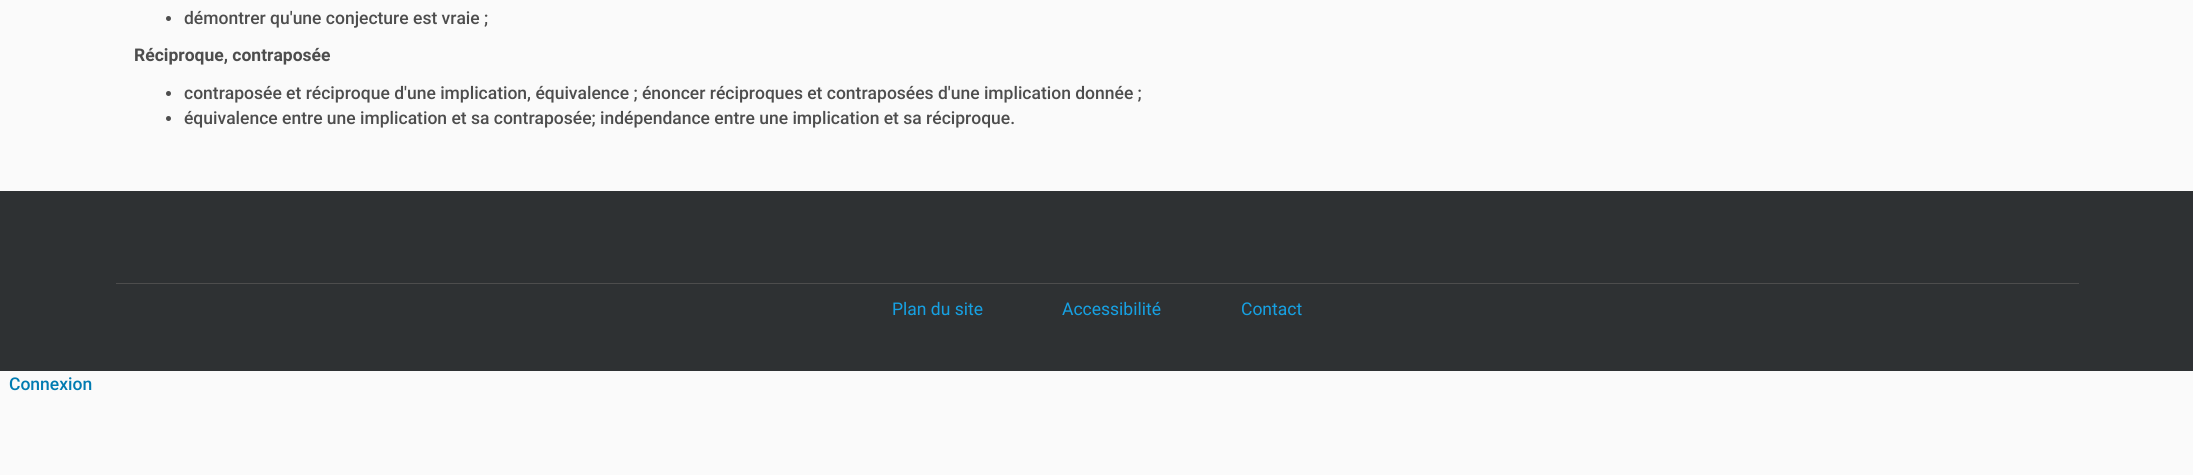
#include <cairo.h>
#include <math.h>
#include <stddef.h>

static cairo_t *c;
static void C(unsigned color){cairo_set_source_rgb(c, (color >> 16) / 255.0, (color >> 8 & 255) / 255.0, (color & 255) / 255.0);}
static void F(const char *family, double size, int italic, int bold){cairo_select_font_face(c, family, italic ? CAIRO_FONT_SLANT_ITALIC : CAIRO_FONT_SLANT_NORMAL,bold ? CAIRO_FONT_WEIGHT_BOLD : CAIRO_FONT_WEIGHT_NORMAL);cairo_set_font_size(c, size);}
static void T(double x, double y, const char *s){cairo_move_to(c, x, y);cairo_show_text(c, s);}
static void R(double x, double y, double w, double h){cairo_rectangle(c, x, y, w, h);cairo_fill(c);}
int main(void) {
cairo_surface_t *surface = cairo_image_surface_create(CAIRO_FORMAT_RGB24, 2193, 475);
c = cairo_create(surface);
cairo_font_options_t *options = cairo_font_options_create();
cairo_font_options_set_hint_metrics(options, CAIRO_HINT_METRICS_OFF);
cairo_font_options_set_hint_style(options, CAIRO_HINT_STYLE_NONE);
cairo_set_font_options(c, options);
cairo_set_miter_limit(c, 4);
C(0xfafafa);
cairo_paint(c);
C(0x4d4d4d);
cairo_arc(c,168.5,18.5,2.5,0,2 * M_PI);
cairo_fill(c);
F("Roboto Medium",17.5,0,0);
T(184,24,"démontrer qu'une conjecture est vraie ;");
F("Roboto",17.5,0,1);
T(134,61,"Réciproque, contraposée");
cairo_new_path(c);
cairo_arc(c,168.5,93.5,2.5,0,2 * M_PI);
cairo_fill(c);
F("Roboto Medium",17.5,0,0);
T(184,99,"contraposée et réciproque d'une implication, équivalence ; énoncer réciproques et contraposées d'une implication donnée ;");
cairo_new_path(c);
cairo_arc(c,168.5,118.5,2.5,0,2 * M_PI);
cairo_fill(c);
T(184,124,"équivalence entre une implication et sa contraposée; indépendance entre une implication et sa réciproque.");
C(0x2e3133);
R(0,191,2193,180);
C(0x4d4d4d);
R(116,283,1963,1);
F("Roboto",17.5,0,0);
C(0x16a1e3);
T(892,315,"Plan du site");
T(1062,315,"Accessibilité");
T(1241,315,"Contact");
F("Roboto Medium",17.5,0,0);
C(0x007bb1);
T(9,390,"Connexion");
cairo_surface_write_to_png(surface, "o.png");
cairo_font_options_destroy(options);
cairo_destroy(c);
cairo_surface_destroy(surface);
return 0;
}
